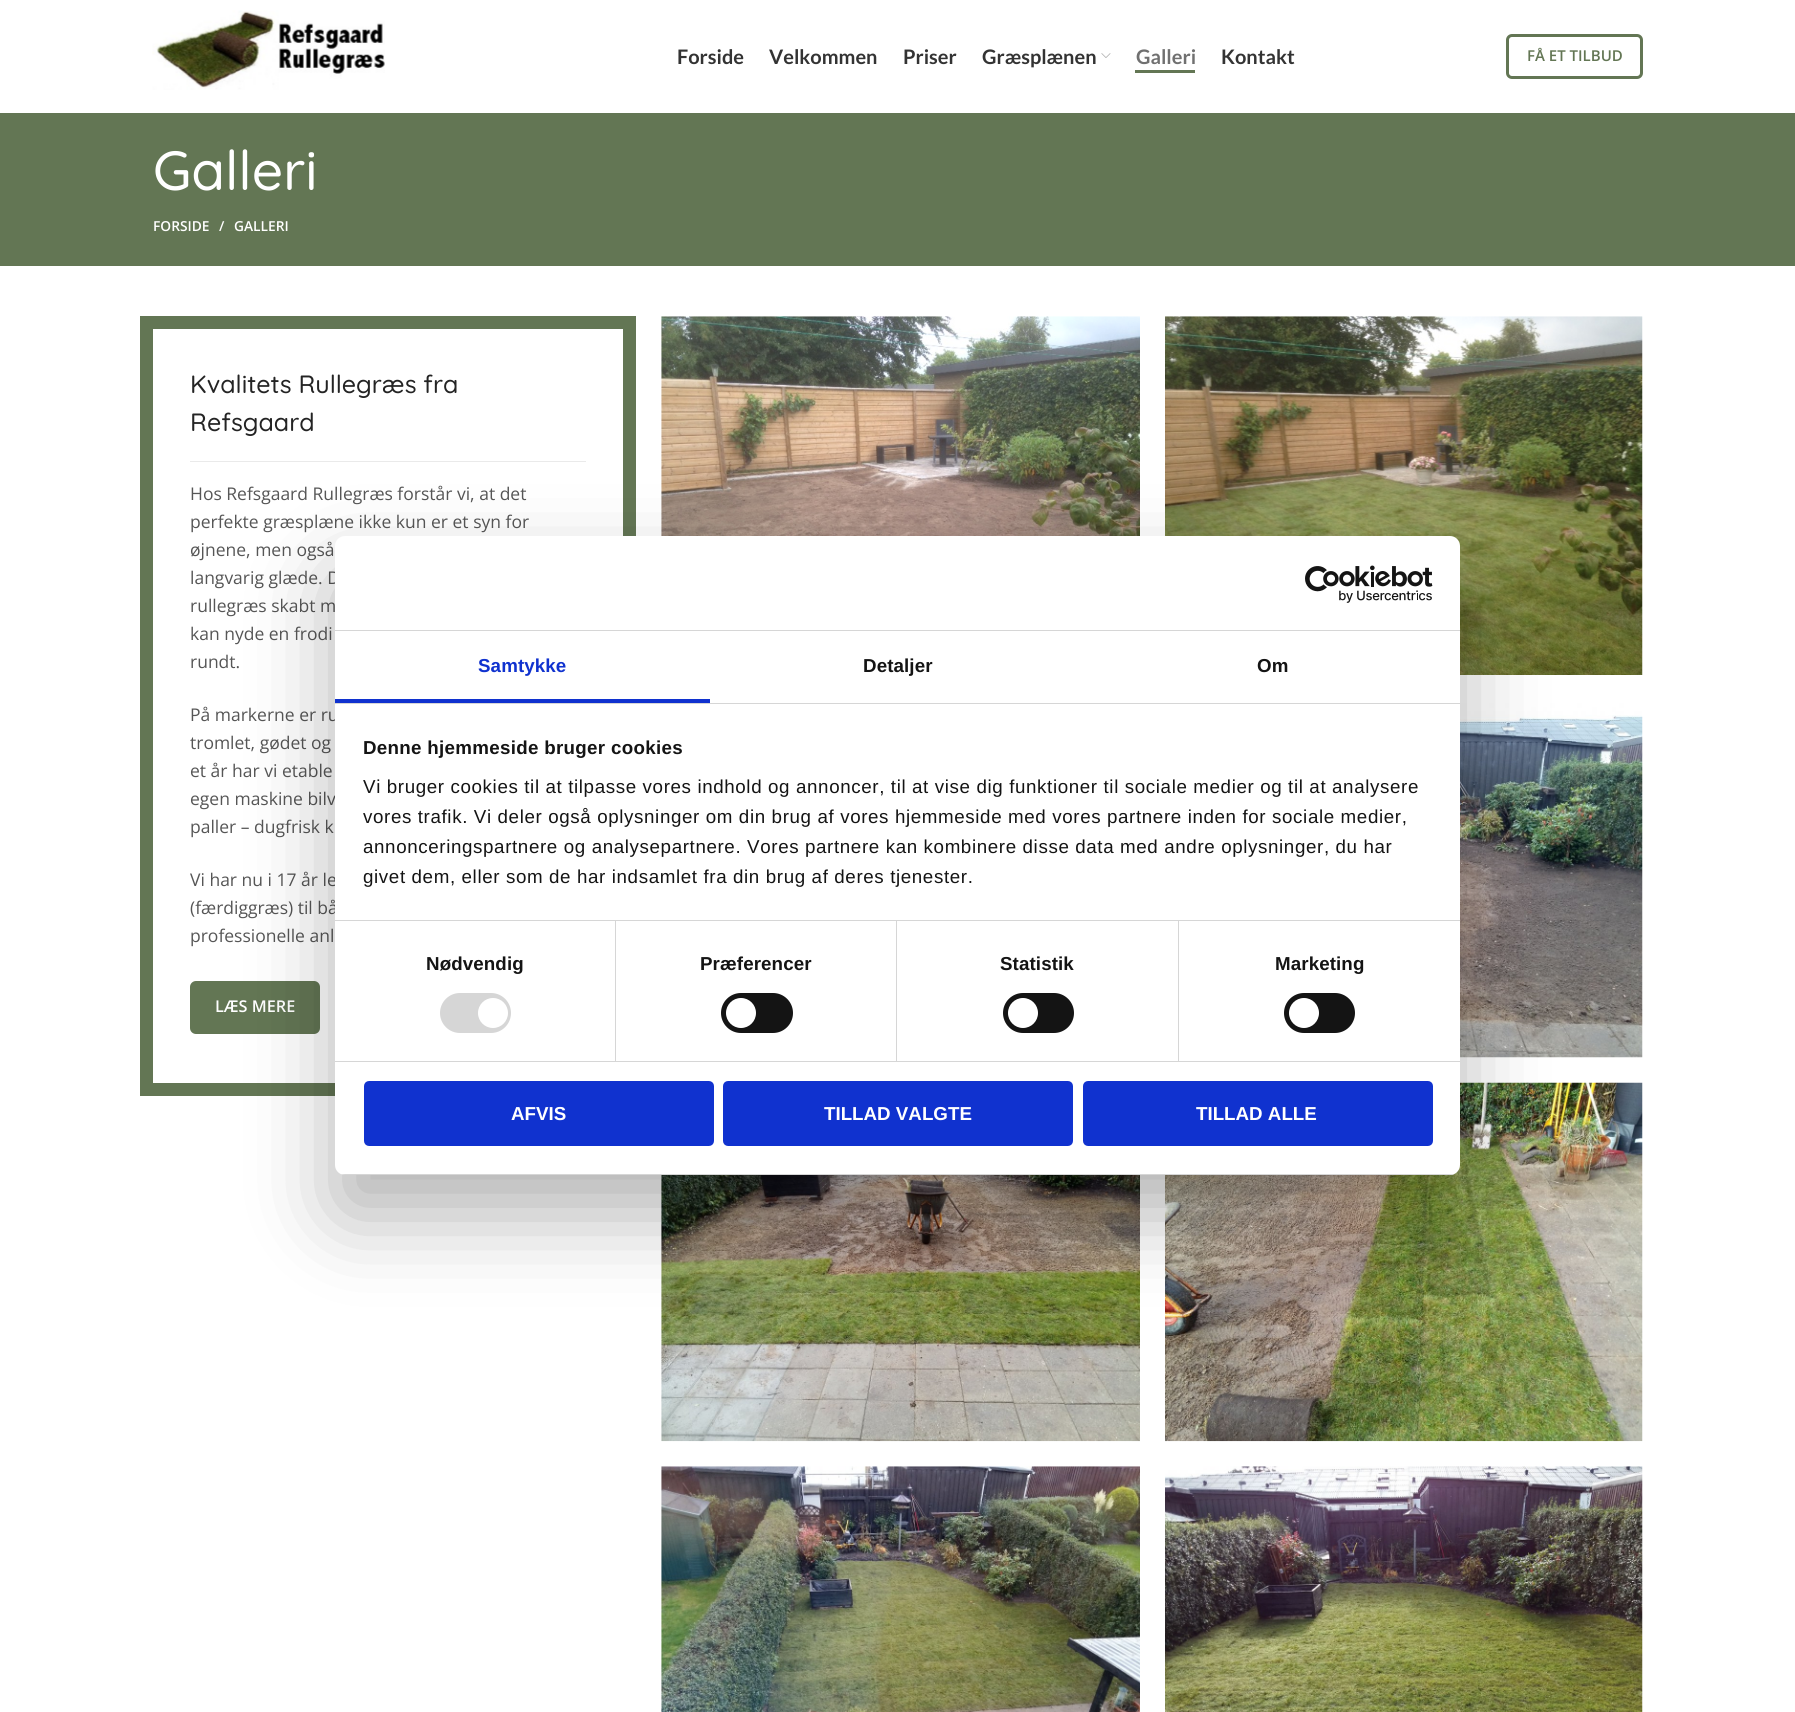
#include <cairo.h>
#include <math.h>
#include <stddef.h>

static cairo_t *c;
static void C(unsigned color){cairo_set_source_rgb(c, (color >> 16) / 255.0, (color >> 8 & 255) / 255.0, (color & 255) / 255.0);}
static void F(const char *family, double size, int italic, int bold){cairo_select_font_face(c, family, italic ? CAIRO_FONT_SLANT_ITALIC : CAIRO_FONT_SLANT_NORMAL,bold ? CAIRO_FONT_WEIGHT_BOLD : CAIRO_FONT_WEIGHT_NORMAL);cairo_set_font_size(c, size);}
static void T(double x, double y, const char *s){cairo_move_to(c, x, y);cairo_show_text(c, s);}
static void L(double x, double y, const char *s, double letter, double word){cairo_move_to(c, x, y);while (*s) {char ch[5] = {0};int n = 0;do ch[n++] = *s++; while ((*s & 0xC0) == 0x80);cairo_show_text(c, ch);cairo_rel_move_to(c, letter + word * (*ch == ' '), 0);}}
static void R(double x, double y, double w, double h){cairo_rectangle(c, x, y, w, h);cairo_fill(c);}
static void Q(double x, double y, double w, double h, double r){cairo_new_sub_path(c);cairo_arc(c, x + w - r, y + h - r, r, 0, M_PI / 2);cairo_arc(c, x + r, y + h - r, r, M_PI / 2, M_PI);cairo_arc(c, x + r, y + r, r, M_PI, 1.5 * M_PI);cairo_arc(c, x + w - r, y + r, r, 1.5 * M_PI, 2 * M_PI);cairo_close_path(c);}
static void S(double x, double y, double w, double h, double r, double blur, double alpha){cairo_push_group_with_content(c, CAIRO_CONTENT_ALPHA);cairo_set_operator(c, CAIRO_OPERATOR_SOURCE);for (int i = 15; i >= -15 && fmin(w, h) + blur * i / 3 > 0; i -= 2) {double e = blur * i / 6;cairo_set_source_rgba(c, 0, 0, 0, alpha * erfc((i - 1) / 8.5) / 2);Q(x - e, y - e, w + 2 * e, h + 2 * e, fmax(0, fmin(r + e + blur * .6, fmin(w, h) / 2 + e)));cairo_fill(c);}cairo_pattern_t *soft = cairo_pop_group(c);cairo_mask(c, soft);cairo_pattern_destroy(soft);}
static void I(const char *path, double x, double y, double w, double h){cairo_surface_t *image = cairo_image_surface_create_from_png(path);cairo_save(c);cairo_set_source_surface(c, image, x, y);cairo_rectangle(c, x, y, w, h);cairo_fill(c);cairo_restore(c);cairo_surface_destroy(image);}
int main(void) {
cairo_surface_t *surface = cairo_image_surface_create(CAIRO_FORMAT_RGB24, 1795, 1712);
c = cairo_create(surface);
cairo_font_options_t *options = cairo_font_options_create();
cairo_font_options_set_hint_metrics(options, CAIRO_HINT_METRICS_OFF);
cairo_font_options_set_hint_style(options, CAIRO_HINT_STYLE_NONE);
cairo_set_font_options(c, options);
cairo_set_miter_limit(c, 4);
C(0xffffff);
cairo_paint(c);
I("1.png",152,10,233,80);
F("Lato",20,0,1);
C(0x333333);
T(677,64,"Forside");
T(769,64,"Velkommen");
T(903,64,"Priser");
T(982,64,"Græsplænen");
I("2.png",1101,53,10,5);
C(0x707070);
T(1136,64,"Galleri");
C(0x637654);
R(1135,70,60,3);
C(0x333333);
T(1221,64,"Kontakt");
Q(1507.5,35.5,134,42,4.5);
C(0x637654);
cairo_set_line_width(c,3);
cairo_stroke(c);
F("Open Sans SemiBold",15,0,0);
T(1527,61,"FÅ ET TILBUD");
R(0,113,1795,153);
F("Quicksand Medium",55,0,0);
C(0xffffff);
T(153,190,"Galleri");
F("Open Sans SemiBold",13.75,0,0);
T(153,231,"FORSIDE");
T(219,231,"/");
T(234,231,"GALLERI");
cairo_rectangle(c,146.5,322.5,483,767);
C(0x637654);
cairo_set_line_width(c,13);
cairo_stroke(c);
F("Quicksand Medium",25,0,0);
C(0x242424);
T(190,393,"Kvalitets Rullegræs fra");
T(190,431,"Refsgaard");
C(0xeaeaea);
R(190,461,396,1);
F("Open Sans",17.5,0,0);
C(0x565656);
T(190,500,"Hos Refsgaard Rullegræs forstår vi, at det");
T(190,528,"perfekte græsplæne ikke kun er et syn for");
T(190,556,"øjnene, men også");
T(190,584,"langvarig glæde. D");
T(190,612,"rullegræs skabt m");
T(190,640,"kan nyde en frodi");
T(190,668,"rundt.");
T(190,721,"På markerne er ru");
T(190,749,"tromlet, gødet og");
T(190,777,"et år har vi etable");
T(190,805,"egen maskine bilv");
T(190,833,"paller – dugfrisk k");
T(190,886,"Vi har nu i 17 år le");
T(190,914,"(færdiggræs) til bå");
T(190,942,"professionelle anl");
C(0x637654);
Q(190,981,130,53,6);
cairo_fill(c);
F("Open Sans SemiBold",16.25,0,0);
C(0xffffff);
T(215,1012,"LÆS MERE");
I("3.png",661,316,479,220);
I("4.png",1165,316,478,359);
I("5.png",1460,700,183,358);
I("6.png",661,1175,479,267);
I("7.png",1165,1082,478,360);
I("8.png",661,1466,479,246);
I("9.png",1165,1466,478,246);
C(0x000000);
S(335,576,1125,639,10,42.5,.3);
C(0xffffff);
Q(335,536,1125,639,10);
cairo_fill(c);
C(0xd6d6d6);
R(335,630,1125,1);
I("10.png",1305,565,128,38);
R(335,703,1125,1);
C(0x1032cf);
R(335,699,375,4);
F("Liberation Sans",18.75,0,1);
L(478,672,"Samtykke",.1,0);
C(0x141414);
L(863,672,"Detaljer",.1,0);
L(1257,672,"Om",.1,0);
C(0xd6d6d6);
R(335,920,1125,1);
C(0x141414);
L(363,754,"Denne hjemmeside bruger cookies",.3,0);
F("Liberation Sans",18.75,0,0);
L(363,793,"Vi bruger cookies til at tilpasse vores indhold og annoncer, til at vise dig funktioner til sociale medier og til at analysere",.62,0);
L(363,823,"vores trafik. Vi deler også oplysninger om din brug af vores hjemmeside med vores partnere inden for sociale medier,",.62,0);
L(363,853,"annonceringspartnere og analysepartnere. Vores partnere kan kombinere disse data med andre oplysninger, du har",.62,0);
L(363,883,"givet dem, eller som de har indsamlet fra din brug af deres tjenester.",.62,0);
C(0xd6d6d6);
R(335,1061,1125,1);
R(615,921,1,140);
F("Liberation Sans",18.75,0,1);
C(0x141414);
L(426,970,"Nødvendig",.1,0);
C(0xd6d6d6);
Q(440,993,71,40,20);
cairo_fill(c);
C(0xffffff);
cairo_arc(c,493,1013,15,0,2 * M_PI);
cairo_fill(c);
C(0xd6d6d6);
R(896,921,1,140);
C(0x141414);
L(700,970,"Præferencer",.1,0);
Q(721,993,72,40,20);
cairo_fill(c);
C(0xffffff);
cairo_arc(c,741,1013,15,0,2 * M_PI);
cairo_fill(c);
C(0xd6d6d6);
R(1178,921,1,140);
C(0x141414);
L(1000,970,"Statistik",.1,0);
Q(1003,993,71,40,20);
cairo_fill(c);
C(0xffffff);
cairo_arc(c,1023,1013,15,0,2 * M_PI);
cairo_fill(c);
C(0x141414);
L(1275,970,"Marketing",.1,0);
Q(1284,993,71,40,20);
cairo_fill(c);
C(0xffffff);
cairo_arc(c,1304,1013,15,0,2 * M_PI);
cairo_fill(c);
cairo_save(c);
Q(335,536,1125,639,10);
cairo_clip(c);
C(0xd6d6d6);
R(335,1174,1125,1);
cairo_restore(c);
C(0x1032cf);
Q(365.5,1082.5,347,62,3.5);
cairo_fill_preserve(c);
cairo_set_line_width(c,3);
cairo_stroke(c);
C(0xffffff);
T(511,1120,"AFVIS");
C(0x1032cf);
Q(724.5,1082.5,347,62,3.5);
cairo_fill_preserve(c);
cairo_stroke(c);
C(0xffffff);
T(824,1120,"TILLAD VALGTE");
C(0x1032cf);
Q(1084.5,1082.5,347,62,3.5);
cairo_fill_preserve(c);
cairo_stroke(c);
C(0xffffff);
T(1196,1120,"TILLAD ALLE");
cairo_surface_write_to_png(surface, "o.png");
cairo_font_options_destroy(options);
cairo_destroy(c);
cairo_surface_destroy(surface);
return 0;
}
